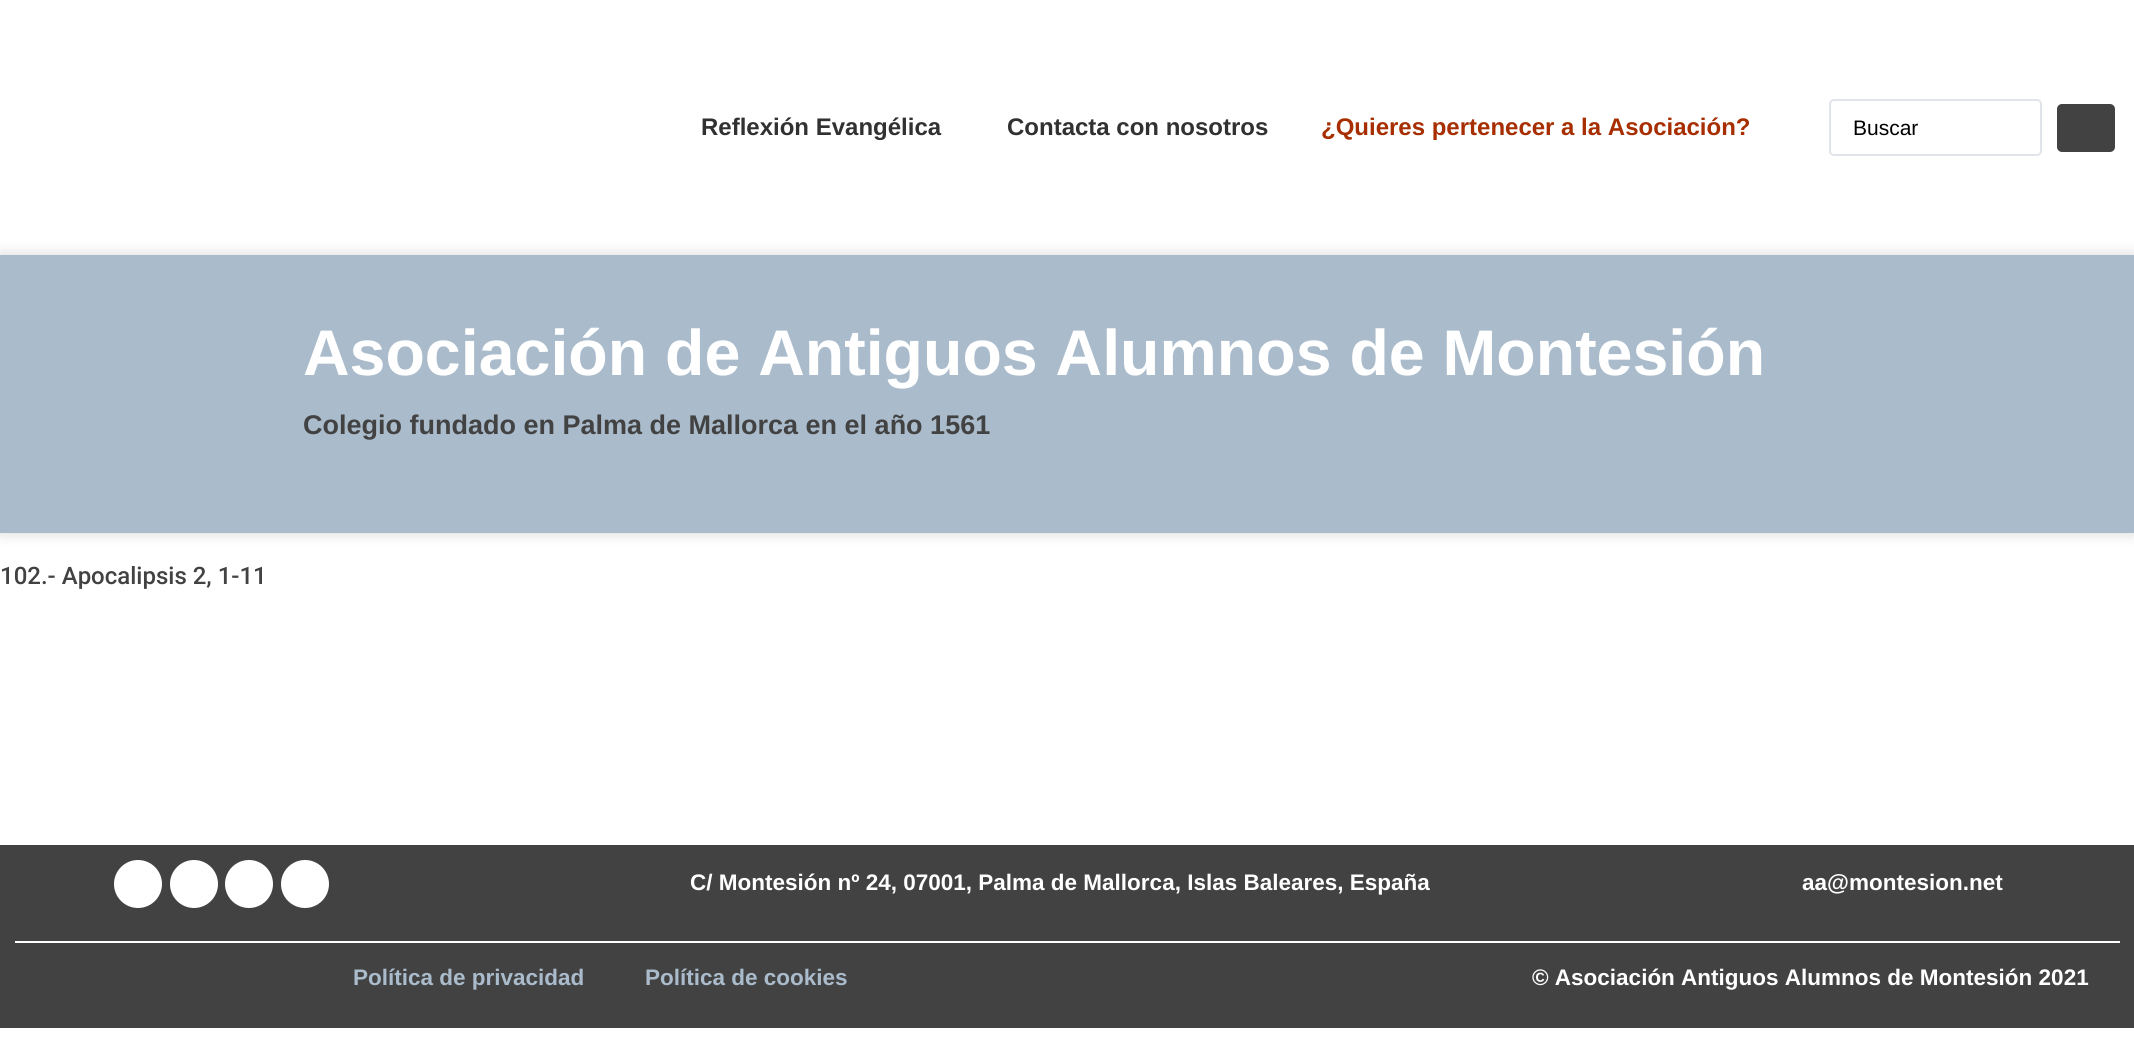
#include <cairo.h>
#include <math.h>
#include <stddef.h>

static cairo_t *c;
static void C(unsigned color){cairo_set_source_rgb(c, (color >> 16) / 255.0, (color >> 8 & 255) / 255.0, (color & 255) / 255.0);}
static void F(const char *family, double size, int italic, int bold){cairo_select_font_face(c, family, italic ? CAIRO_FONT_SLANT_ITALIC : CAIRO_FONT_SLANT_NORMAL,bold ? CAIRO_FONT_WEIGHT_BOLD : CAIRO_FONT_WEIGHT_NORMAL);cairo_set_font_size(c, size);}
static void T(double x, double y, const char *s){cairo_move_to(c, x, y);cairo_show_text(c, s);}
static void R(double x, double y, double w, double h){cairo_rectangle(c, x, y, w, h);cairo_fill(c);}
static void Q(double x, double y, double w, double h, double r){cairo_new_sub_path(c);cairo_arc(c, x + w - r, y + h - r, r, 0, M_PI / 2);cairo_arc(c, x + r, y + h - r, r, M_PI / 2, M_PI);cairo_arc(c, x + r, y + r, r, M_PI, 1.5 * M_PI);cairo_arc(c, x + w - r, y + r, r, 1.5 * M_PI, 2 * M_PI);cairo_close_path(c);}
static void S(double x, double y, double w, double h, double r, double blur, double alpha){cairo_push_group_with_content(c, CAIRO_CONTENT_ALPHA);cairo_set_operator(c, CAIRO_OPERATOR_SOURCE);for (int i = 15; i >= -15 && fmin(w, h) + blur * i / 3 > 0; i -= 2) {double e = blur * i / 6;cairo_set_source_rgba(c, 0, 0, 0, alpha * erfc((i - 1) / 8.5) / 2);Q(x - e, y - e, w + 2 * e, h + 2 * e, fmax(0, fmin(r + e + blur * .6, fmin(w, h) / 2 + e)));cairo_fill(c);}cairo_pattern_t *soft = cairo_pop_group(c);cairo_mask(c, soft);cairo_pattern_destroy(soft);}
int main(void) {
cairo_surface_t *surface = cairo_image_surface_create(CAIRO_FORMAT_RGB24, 2134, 1041);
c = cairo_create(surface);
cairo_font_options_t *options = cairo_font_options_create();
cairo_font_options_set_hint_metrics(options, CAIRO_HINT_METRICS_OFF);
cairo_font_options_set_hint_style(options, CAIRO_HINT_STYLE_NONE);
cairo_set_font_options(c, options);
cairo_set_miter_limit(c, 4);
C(0xffffff);
cairo_paint(c);
F("Liberation Sans",24,0,1);
C(0x313131);
T(701,135,"Reflexión Evangélica");
T(1007,135,"Contacta con nosotros");
C(0xa72e00);
T(1321,135,"¿Quieres pertenecer a la Asociación?");
Q(1830,100,211,55,4);
C(0xe1e5eb);
cairo_stroke(c);
F("Liberation Sans",21,0,0);
C(0x000000);
T(1853,135,"Buscar");
C(0x424242);
Q(2057,104,58,48,5);
cairo_fill(c);
C(0x000000);
S(0,255,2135,278,0,7.5,.16);
C(0xaabbcb);
R(0,255,2134,278);
F("Liberation Sans",64.5,0,1);
C(0xffffff);
T(303,375,"Asociación de Antiguos Alumnos de Montesión");
F("Liberation Sans",27,0,1);
C(0x424242);
T(303,434,"Colegio fundado en Palma de Mallorca en el año 1561");
F("Roboto Medium",24,0,0);
T(0,584,"102.- Apocalipsis 2, 1-11");
R(0,845,2134,183);
C(0xffffff);
cairo_new_path(c);
cairo_arc(c,138,884,24,0,2 * M_PI);
cairo_fill(c);
cairo_arc(c,194,884,24,0,2 * M_PI);
cairo_fill(c);
cairo_arc(c,249,884,24,0,2 * M_PI);
cairo_fill(c);
cairo_arc(c,305,884,24,0,2 * M_PI);
cairo_fill(c);
F("Liberation Sans",22.5,0,1);
T(690,890,"C/ Montesión nº 24, 07001, Palma de Mallorca, Islas Baleares, España");
T(1802,890,"aa@montesion.net");
R(15,941,2105,2);
C(0xaabbcb);
T(353,985,"Política de privacidad");
T(645,985,"Política de cookies");
C(0xffffff);
T(1532,985,"© Asociación Antiguos Alumnos de Montesión 2021");
cairo_surface_write_to_png(surface, "o.png");
cairo_font_options_destroy(options);
cairo_destroy(c);
cairo_surface_destroy(surface);
return 0;
}
